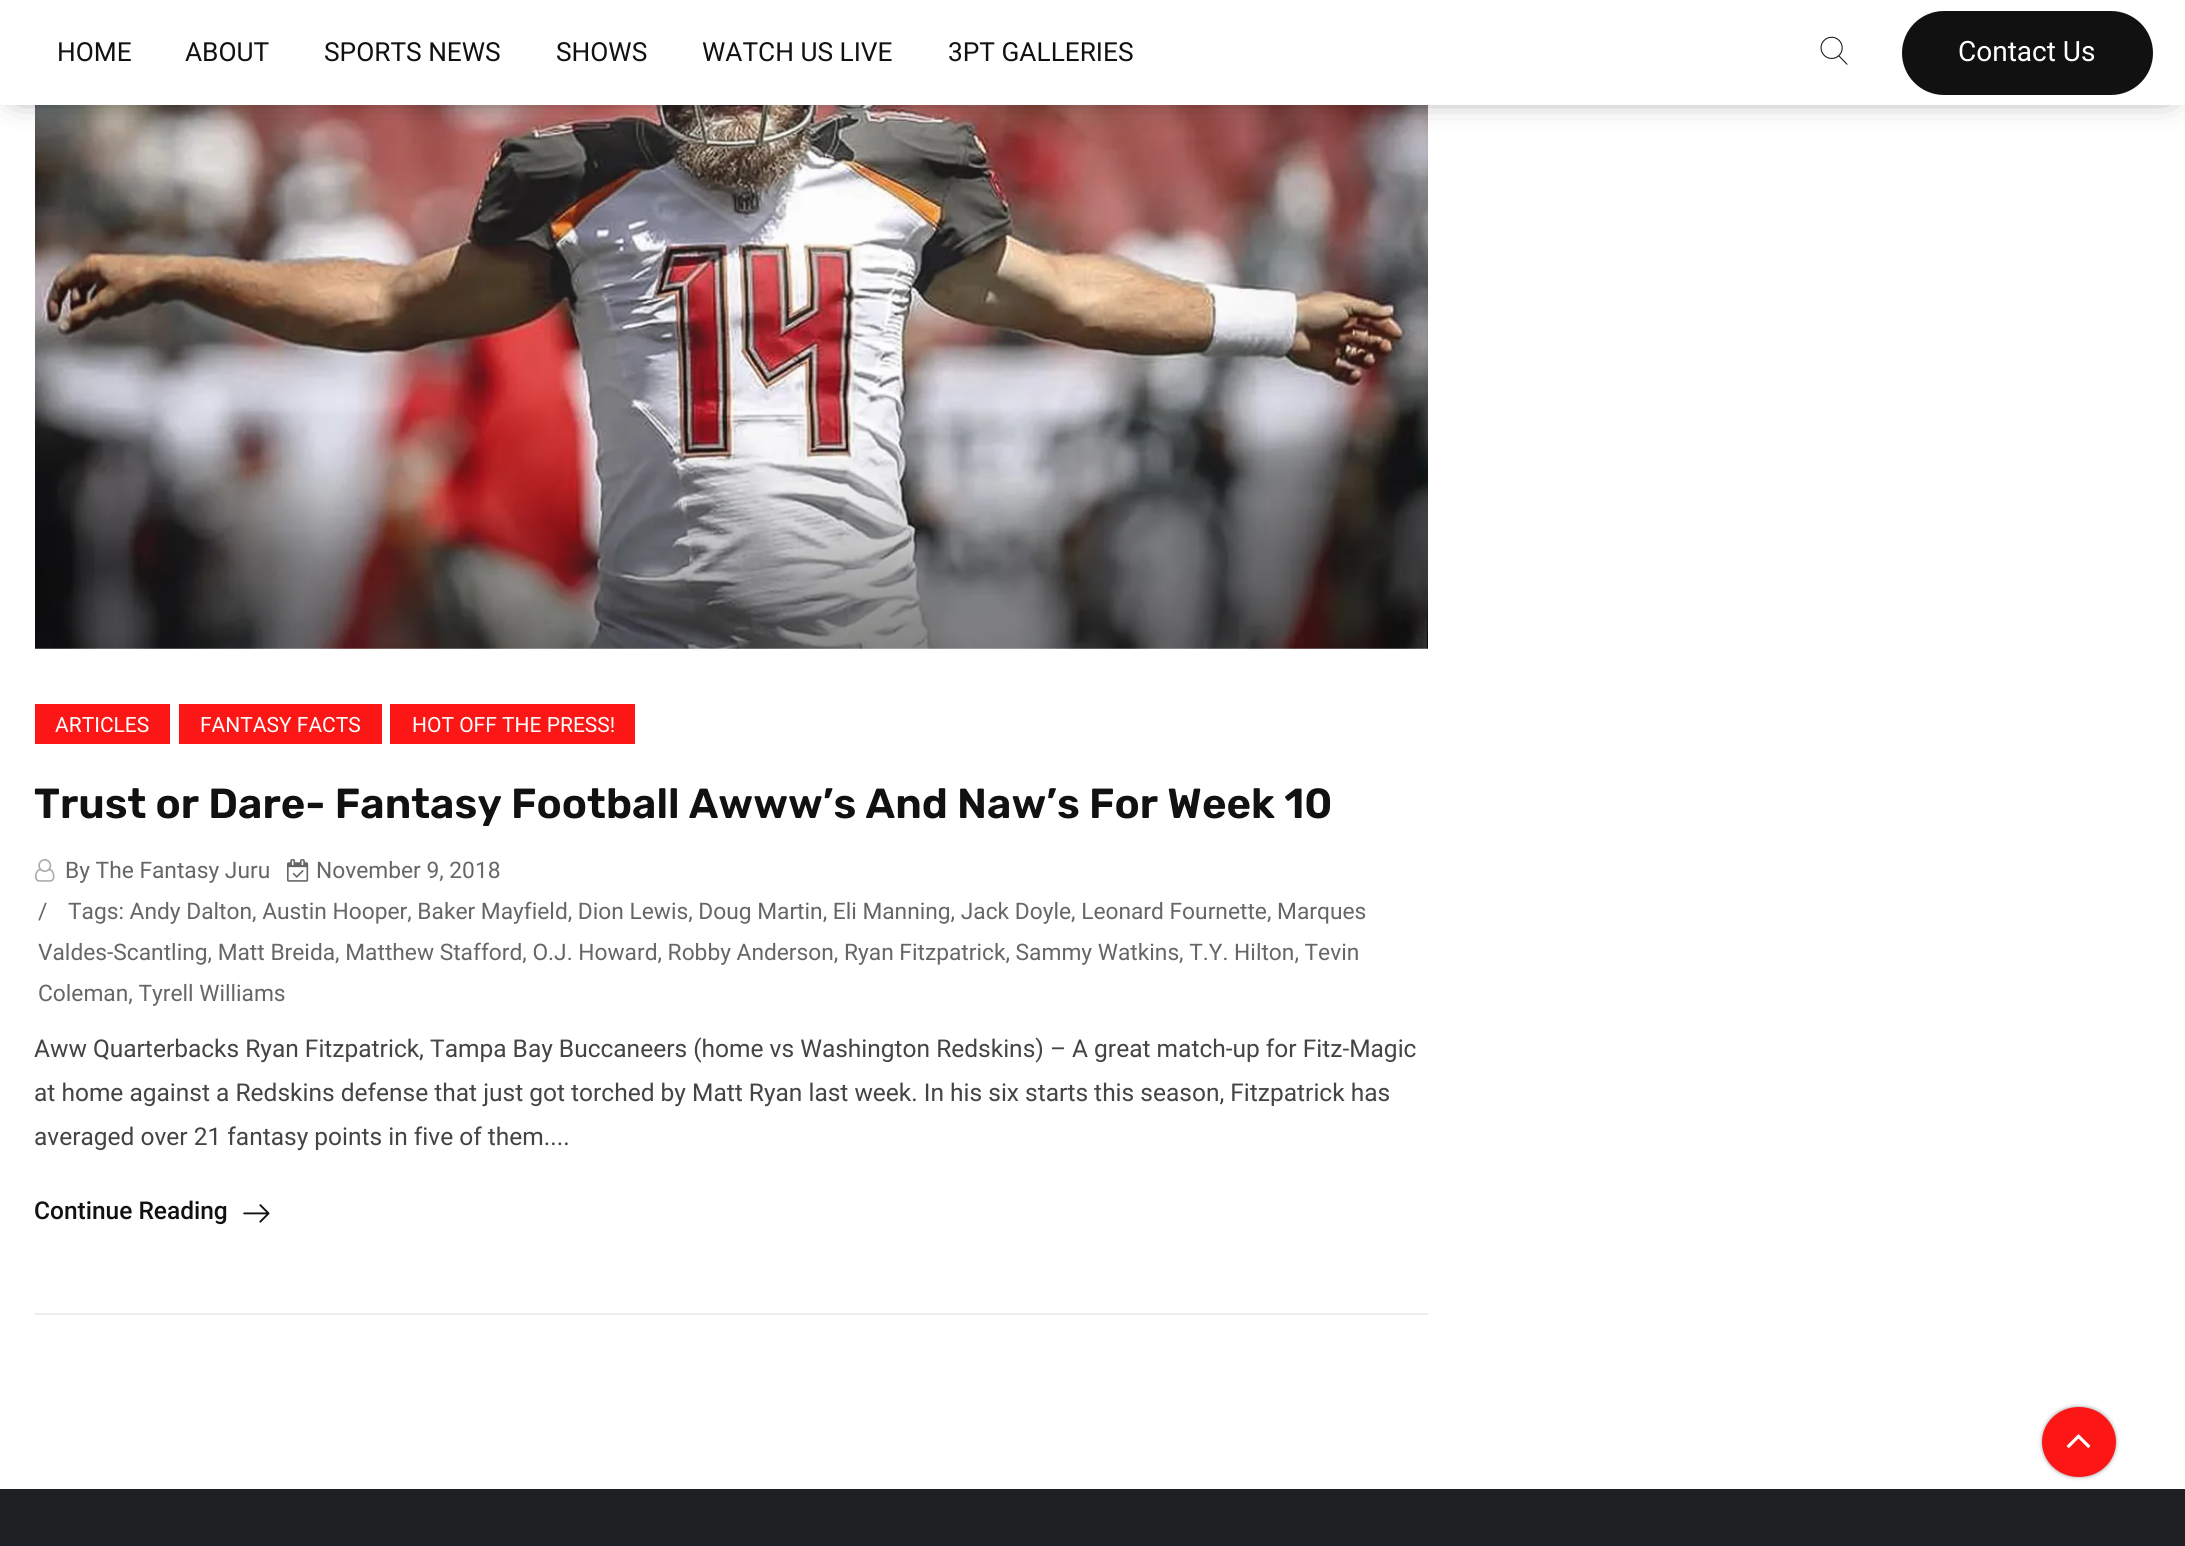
#include <cairo.h>
#include <math.h>
#include <stddef.h>

static cairo_t *c;
static void C(unsigned color){cairo_set_source_rgb(c, (color >> 16) / 255.0, (color >> 8 & 255) / 255.0, (color & 255) / 255.0);}
static void F(const char *family, double size, int italic, int bold){cairo_select_font_face(c, family, italic ? CAIRO_FONT_SLANT_ITALIC : CAIRO_FONT_SLANT_NORMAL,bold ? CAIRO_FONT_WEIGHT_BOLD : CAIRO_FONT_WEIGHT_NORMAL);cairo_set_font_size(c, size);}
static void T(double x, double y, const char *s){cairo_move_to(c, x, y);cairo_show_text(c, s);}
static void R(double x, double y, double w, double h){cairo_rectangle(c, x, y, w, h);cairo_fill(c);}
static void Q(double x, double y, double w, double h, double r){cairo_new_sub_path(c);cairo_arc(c, x + w - r, y + h - r, r, 0, M_PI / 2);cairo_arc(c, x + r, y + h - r, r, M_PI / 2, M_PI);cairo_arc(c, x + r, y + r, r, M_PI, 1.5 * M_PI);cairo_arc(c, x + w - r, y + r, r, 1.5 * M_PI, 2 * M_PI);cairo_close_path(c);}
static void S(double x, double y, double w, double h, double r, double blur, double alpha){cairo_push_group_with_content(c, CAIRO_CONTENT_ALPHA);cairo_set_operator(c, CAIRO_OPERATOR_SOURCE);for (int i = 15; i >= -15 && fmin(w, h) + blur * i / 3 > 0; i -= 2) {double e = blur * i / 6;cairo_set_source_rgba(c, 0, 0, 0, alpha * erfc((i - 1) / 8.5) / 2);Q(x - e, y - e, w + 2 * e, h + 2 * e, fmax(0, fmin(r + e + blur * .6, fmin(w, h) / 2 + e)));cairo_fill(c);}cairo_pattern_t *soft = cairo_pop_group(c);cairo_mask(c, soft);cairo_pattern_destroy(soft);}
static void I(const char *path, double x, double y, double w, double h){cairo_surface_t *image = cairo_image_surface_create_from_png(path);cairo_save(c);cairo_set_source_surface(c, image, x, y);cairo_rectangle(c, x, y, w, h);cairo_fill(c);cairo_restore(c);cairo_surface_destroy(image);}
int main(void) {
cairo_surface_t *surface = cairo_image_surface_create(CAIRO_FORMAT_RGB24, 2185, 1546);
c = cairo_create(surface);
cairo_font_options_t *options = cairo_font_options_create();
cairo_font_options_set_hint_metrics(options, CAIRO_HINT_METRICS_OFF);
cairo_font_options_set_hint_style(options, CAIRO_HINT_STYLE_NONE);
cairo_set_font_options(c, options);
cairo_set_miter_limit(c, 4);
C(0xffffff);
cairo_paint(c);
I("2.png",35,105,1393,544);
C(0x000000);
S(18,18,2150,70,0,17.5,.8);
C(0xffffff);
R(0,0,2185,105);
F("Roboto",26.25,0,0);
C(0x111111);
T(57,61,"HOME");
T(185,61,"ABOUT");
T(324,61,"SPORTS NEWS");
T(556,61,"SHOWS");
T(702,61,"WATCH US LIVE");
T(948,61,"3PT GALLERIES");
I("1.png",1820,36,28,29);
Q(1904,13,247,80,40);
cairo_fill_preserve(c);
cairo_set_line_width(c,4);
cairo_stroke(c);
F("Roboto",28,0,0);
C(0xffffff);
T(1958,61,"Contact Us");
C(0xededed);
R(35,1313,1393,2);
C(0xfc1616);
R(35,704,135,40);
F("Roboto",21,0,0);
C(0xffffff);
T(55,732,"ARTICLES");
C(0xfc1616);
R(179,704,203,40);
C(0xffffff);
T(200,732,"FANTASY FACTS");
C(0xfc1616);
R(390,704,245,40);
C(0xffffff);
T(412,732,"HOT OFF THE PRESS!");
F("Rubik SemiBold",42,0,0);
C(0x111111);
T(34,818,"Trust or Dare- Fantasy Football Awww’s And Naw’s For Week 10");
I("3.png",35,859,20,23);
F("Roboto",22.75,0,0);
C(0x666666);
T(65,878,"By The Fantasy Juru");
I("4.png",287,859,22,23);
T(316,878,"November 9, 2018");
T(38,919,"/");
T(68,919,"Tags: Andy Dalton, Austin Hooper, Baker Mayfield, Dion Lewis, Doug Martin, Eli Manning, Jack Doyle, Leonard Fournette, Marques");
T(38,960,"Valdes-Scantling, Matt Breida, Matthew Stafford, O.J. Howard, Robby Anderson, Ryan Fitzpatrick, Sammy Watkins, T.Y. Hilton, Tevin");
T(38,1001,"Coleman, Tyrell Williams");
F("Roboto",24.5,0,0);
C(0x444444);
T(34,1057,"Aww Quarterbacks Ryan Fitzpatrick, Tampa Bay Buccaneers (home vs Washington Redskins) – A great match-up for Fitz-Magic");
T(34,1101,"at home against a Redskins defense that just got torched by Matt Ryan last week. In his six starts this season, Fitzpatrick has");
T(34,1145,"averaged over 21 fantasy points in five of them....");
F("Roboto Medium",24.5,0,0);
C(0x111111);
T(34,1219,"Continue Reading");
I("5.png",243,1204,27,19);
C(0x1f2024);
R(0,1489,2185,57);
C(0x000000);
S(2042,1407,74,70,35,2,.4);
C(0xfc1616);
cairo_new_path(c);
cairo_move_to(c,2079,1407);
cairo_curve_to(c,2099.5,1407,2116,1422.5,2116,1442);
cairo_curve_to(c,2116,1461.5,2099.5,1477,2079,1477);
cairo_curve_to(c,2058.5,1477,2042,1461.5,2042,1442);
cairo_curve_to(c,2042,1422.5,2058.5,1407,2079,1407);
cairo_close_path(c);
cairo_fill(c);
I("6.png",2066,1434,25,14);
cairo_surface_write_to_png(surface, "o.png");
cairo_font_options_destroy(options);
cairo_destroy(c);
cairo_surface_destroy(surface);
return 0;
}
